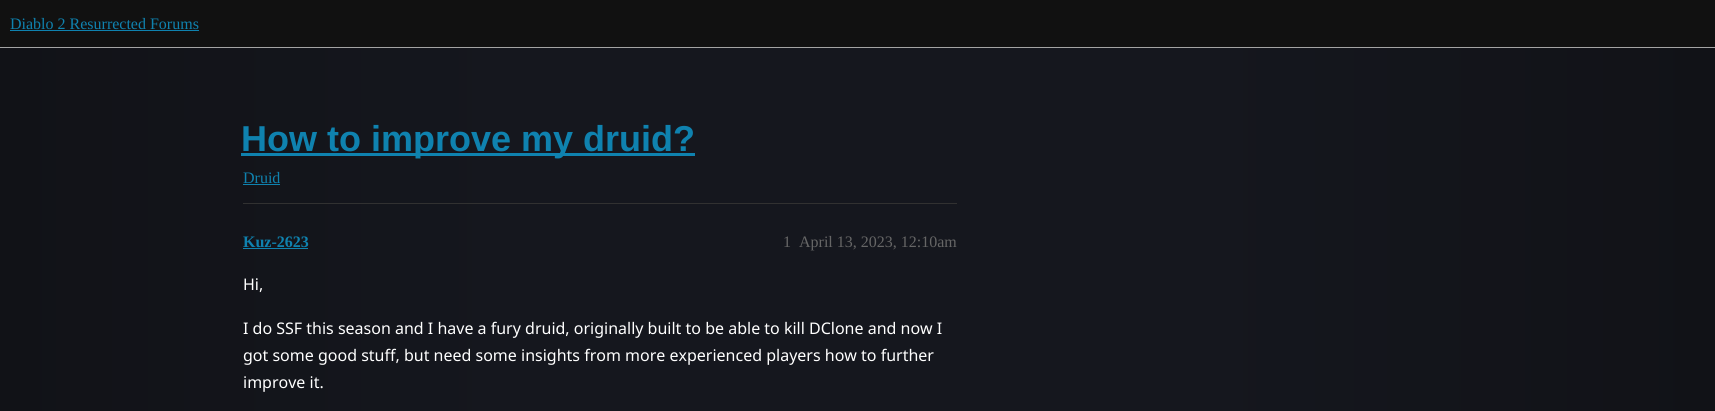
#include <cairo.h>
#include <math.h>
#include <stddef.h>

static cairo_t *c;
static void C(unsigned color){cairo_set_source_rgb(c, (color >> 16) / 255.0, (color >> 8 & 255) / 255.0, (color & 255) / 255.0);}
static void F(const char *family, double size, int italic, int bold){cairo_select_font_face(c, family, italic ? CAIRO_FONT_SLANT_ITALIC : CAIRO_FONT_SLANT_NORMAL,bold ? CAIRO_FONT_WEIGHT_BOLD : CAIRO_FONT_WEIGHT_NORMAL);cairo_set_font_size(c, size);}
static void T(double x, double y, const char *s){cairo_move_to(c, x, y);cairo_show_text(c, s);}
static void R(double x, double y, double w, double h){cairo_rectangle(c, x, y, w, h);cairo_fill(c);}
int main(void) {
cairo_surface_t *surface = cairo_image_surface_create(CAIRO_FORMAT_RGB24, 1715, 411);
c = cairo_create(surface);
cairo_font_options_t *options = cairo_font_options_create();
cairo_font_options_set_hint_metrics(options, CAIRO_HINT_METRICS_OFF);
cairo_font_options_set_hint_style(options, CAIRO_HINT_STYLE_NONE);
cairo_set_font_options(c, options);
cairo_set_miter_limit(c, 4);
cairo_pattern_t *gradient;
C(0xffffff);
cairo_paint(c);
gradient = cairo_pattern_create_linear(0,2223,1715,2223);
cairo_pattern_add_color_stop_rgba(gradient,0,0.067,0.071,0.09,1);
cairo_pattern_add_color_stop_rgba(gradient,.3,0.082,0.09,0.118,1);
cairo_pattern_add_color_stop_rgba(gradient,.7,0.082,0.09,0.118,1);
cairo_pattern_add_color_stop_rgba(gradient,1,0.067,0.071,0.09,1);
cairo_set_source(c,gradient);
cairo_pattern_destroy(gradient);
R(0,48,1715,363);
C(0x111111);
R(0,0,1715,47);
C(0xa4a4a4);
R(0,47,1715,1);
F("Liberation Serif",16,0,0);
C(0x0f82af);
T(10,29,"Diablo 2 Resurrected Forums");
R(10,30,189,1);
R(241,153,454,3);
F("Liberation Sans",36,0,1);
T(241,151,"How to improve my druid?");
F("Liberation Serif",16,0,0);
T(243,183,"Druid");
R(243,184,37,1);
C(0x313131);
R(243,203,714,1);
F("Liberation Serif",16,0,1);
C(0x0f82af);
T(243,247,"Kuz-2623");
R(243,248,65,1);
F("Liberation Serif",16,0,0);
C(0x666666);
T(783,247,"1");
T(799,247,"April 13, 2023, 12:10am");
F("Noto Sans",16,0,0);
C(0xffffff);
T(243,290,"Hi,");
T(243,334,"I do SSF this season and I have a fury druid, originally built to be able to kill DClone and now I");
T(243,361,"got some good stuff, but need some insights from more experienced players how to further");
T(243,388,"improve it.");
cairo_surface_write_to_png(surface, "o.png");
cairo_font_options_destroy(options);
cairo_destroy(c);
cairo_surface_destroy(surface);
return 0;
}
